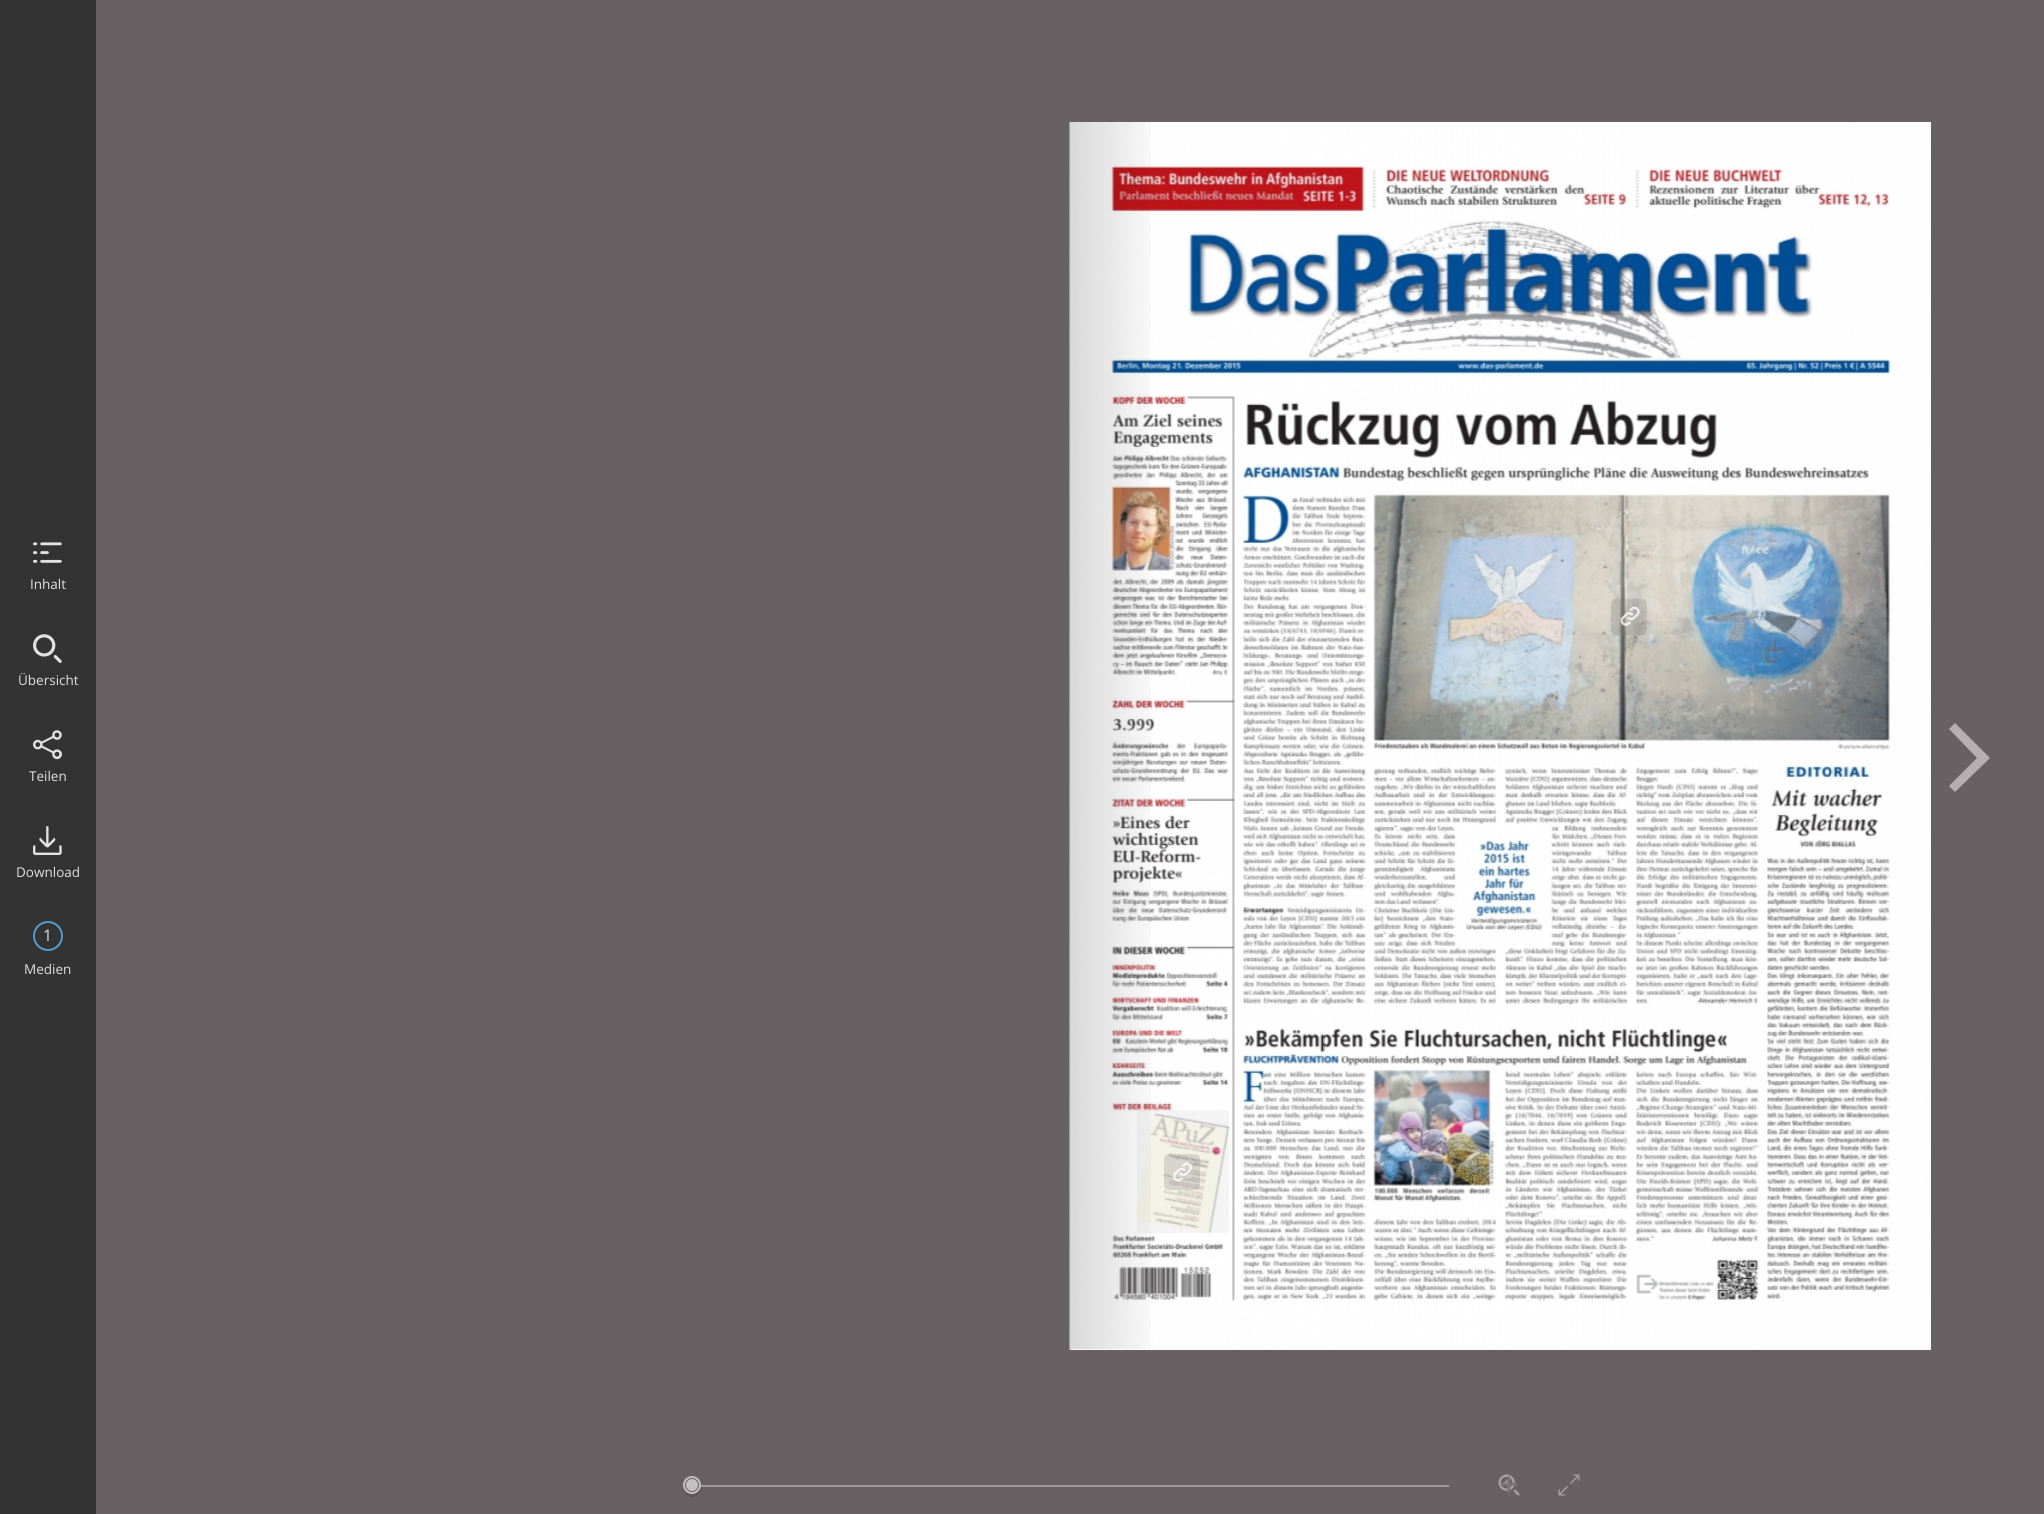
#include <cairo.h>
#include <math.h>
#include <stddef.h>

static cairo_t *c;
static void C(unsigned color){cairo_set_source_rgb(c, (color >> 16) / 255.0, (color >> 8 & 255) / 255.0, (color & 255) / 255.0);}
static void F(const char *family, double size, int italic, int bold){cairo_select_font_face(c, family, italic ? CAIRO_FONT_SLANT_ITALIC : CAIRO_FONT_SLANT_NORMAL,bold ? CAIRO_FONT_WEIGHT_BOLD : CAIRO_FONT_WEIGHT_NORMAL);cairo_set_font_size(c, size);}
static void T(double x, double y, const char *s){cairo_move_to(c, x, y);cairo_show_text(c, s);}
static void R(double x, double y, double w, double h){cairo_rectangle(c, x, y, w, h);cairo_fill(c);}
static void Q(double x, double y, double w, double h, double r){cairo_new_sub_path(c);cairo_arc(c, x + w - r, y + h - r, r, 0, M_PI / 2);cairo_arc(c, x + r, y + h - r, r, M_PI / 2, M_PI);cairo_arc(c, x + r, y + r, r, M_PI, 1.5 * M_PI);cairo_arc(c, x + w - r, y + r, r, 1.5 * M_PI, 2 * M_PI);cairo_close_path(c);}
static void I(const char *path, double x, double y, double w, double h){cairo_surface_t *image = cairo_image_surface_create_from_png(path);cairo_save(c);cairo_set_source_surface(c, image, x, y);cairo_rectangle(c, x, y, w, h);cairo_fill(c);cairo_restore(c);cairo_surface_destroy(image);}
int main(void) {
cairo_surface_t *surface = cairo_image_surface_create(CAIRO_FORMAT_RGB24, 2044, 1514);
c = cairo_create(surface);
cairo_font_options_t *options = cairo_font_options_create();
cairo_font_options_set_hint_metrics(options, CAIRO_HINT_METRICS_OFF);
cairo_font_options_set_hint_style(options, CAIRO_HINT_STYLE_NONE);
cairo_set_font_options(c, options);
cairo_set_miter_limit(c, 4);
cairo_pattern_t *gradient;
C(0x686163);
cairo_paint(c);
C(0x333333);
R(0,0,96,1514);
I("1.png",33,542,29,21);
F("Open Sans",13.5,0,0);
C(0xe0e0e0);
T(30,589,"Inhalt");
I("2.png",33,634,29,29);
T(18,685,"Übersicht");
I("3.png",33,730,29,30);
T(29,781,"Teilen");
I("4.png",33,826,29,29);
T(16,877,"Download");
cairo_new_path(c);
cairo_arc(c,48,936,14,0,2 * M_PI);
C(0x549cd2);
cairo_stroke(c);
F("Open Sans",16,0,0);
C(0xe0e0e0);
T(43,941,"1");
F("Open Sans",13.5,0,0);
T(24,974,"Medien");
I("6.png",1070,122,861,1228);
I("5.png",1069,122,862,1228);
cairo_set_source_rgba(c,0.753,0.753,0.753,0.15);
R(1137,1110,92,123);
gradient = cairo_pattern_create_linear(1069,735,1165,735);
cairo_pattern_add_color_stop_rgba(gradient,0,0,0,0,.15);
cairo_pattern_add_color_stop_rgba(gradient,1,0,0,0,0);
cairo_set_source(c,gradient);
cairo_pattern_destroy(gradient);
R(1070,122,81,1227);
cairo_set_source_rgba(c,0.753,0.753,0.753,0.15);
R(1374,495,512,243);
cairo_set_source_rgba(c,0.49,0.49,0.49,0.25);
Q(1611,599,36,36,5);
cairo_fill(c);
I("7.png",1620,606,20,20);
Q(1164,1154,36,36,5);
cairo_fill(c);
I("8.png",1172,1162,20,20);
C(0xb4b0b1);
cairo_new_path(c);
cairo_move_to(c,1955,723);
cairo_line_to(c,1990,758);
cairo_line_to(c,1955,792);
cairo_line_to(c,1949,786);
cairo_line_to(c,1977,758);
cairo_line_to(c,1949,729);
cairo_close_path(c);
cairo_fill(c);
C(0x9f9a9b);
R(692,1485,757,2);
C(0x5c5557);
cairo_new_path(c);
cairo_move_to(c,683,1488);
cairo_curve_to(c,683,1490.5,684,1492.5,685.5,1494.5);
cairo_curve_to(c,692.5,1501,703.5,1494,700.5,1485);
cairo_curve_to(c,700.5,1495,686.5,1497.5,683,1488);
cairo_close_path(c);
cairo_fill(c);
C(0x686163);
cairo_arc(c,692,1485,8,0,2 * M_PI);
cairo_fill_preserve(c);
C(0xc3c0c1);
cairo_stroke(c);
cairo_arc(c,692,1485,6,0,2 * M_PI);
cairo_fill(c);
I("9.png",1498,1474,22,22);
F("Droid Sans",36,0,0);
C(0x7b7577);
T(1499,1497,"+");
I("10.png",1558,1474,22,22);
cairo_surface_write_to_png(surface, "o.png");
cairo_font_options_destroy(options);
cairo_destroy(c);
cairo_surface_destroy(surface);
return 0;
}
